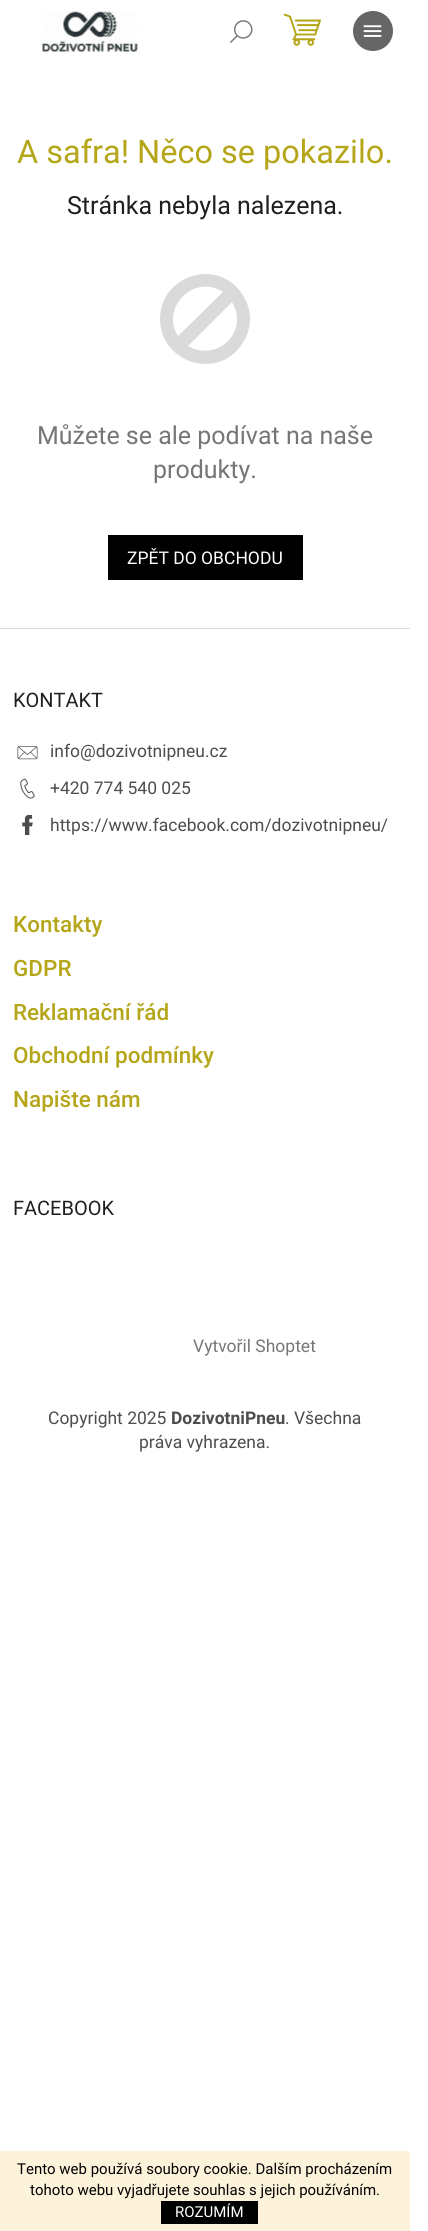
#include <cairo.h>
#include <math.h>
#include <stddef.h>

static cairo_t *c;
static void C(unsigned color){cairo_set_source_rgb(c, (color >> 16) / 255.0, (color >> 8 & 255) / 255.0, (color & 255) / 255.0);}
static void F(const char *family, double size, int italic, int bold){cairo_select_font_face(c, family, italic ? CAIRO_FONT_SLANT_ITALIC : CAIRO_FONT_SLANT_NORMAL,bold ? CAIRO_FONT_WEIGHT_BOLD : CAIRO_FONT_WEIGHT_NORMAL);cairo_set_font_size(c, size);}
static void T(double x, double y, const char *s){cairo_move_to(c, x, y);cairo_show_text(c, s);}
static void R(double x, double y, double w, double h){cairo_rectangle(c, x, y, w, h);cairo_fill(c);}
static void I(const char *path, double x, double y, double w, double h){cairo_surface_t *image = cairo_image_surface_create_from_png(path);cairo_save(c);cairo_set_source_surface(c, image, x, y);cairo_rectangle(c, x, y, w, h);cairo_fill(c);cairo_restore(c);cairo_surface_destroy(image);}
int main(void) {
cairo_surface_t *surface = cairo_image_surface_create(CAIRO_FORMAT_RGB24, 428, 2231);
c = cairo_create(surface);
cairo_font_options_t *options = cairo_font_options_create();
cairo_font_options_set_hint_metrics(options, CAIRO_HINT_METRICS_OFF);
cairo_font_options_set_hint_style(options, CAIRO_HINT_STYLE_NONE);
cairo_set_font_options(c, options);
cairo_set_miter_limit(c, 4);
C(0xffffff);
cairo_paint(c);
I("1.png",42,11,96,41);
I("2.png",283,13,39,33);
I("3.png",230,20,23,23);
C(0x666666);
cairo_arc(c,373,31,20,0,2 * M_PI);
cairo_fill(c);
I("4.png",363,25,19,12);
F("Roboto",32.5,0,0);
C(0xb5a619);
T(17,163,"A safra! Něco se pokazilo.");
F("Roboto",25,0,0);
C(0x1f1f1f);
T(67,214,"Stránka nebyla nalezena.");
C(0xdadada);
cairo_new_path(c);
cairo_move_to(c,237,319);
cairo_curve_to(c,237,313,235,307,232,302);
cairo_line_to(c,188,346);
cairo_curve_to(c,209,359,237,344,237,319);
cairo_close_path(c);
cairo_move_to(c,178,336);
cairo_line_to(c,223,292);
cairo_curve_to(c,194,273,160,308,178,336);
cairo_close_path(c);
cairo_move_to(c,250,319);
cairo_curve_to(c,250,328,247,337,242,344);
cairo_curve_to(c,218,381,160,363,160,319);
cairo_curve_to(c,160,275,218,257,242,294);
cairo_curve_to(c,247,301,250,310,250,319);
cairo_close_path(c);
cairo_fill(c);
C(0x767676);
T(37,444,"Můžete se ale podívat na naše");
T(153,478,"produkty.");
C(0x000000);
R(108,535,195,45);
F("Roboto",17.5,0,0);
C(0xffffff);
T(127,564,"ZPĚT DO OBCHODU");
C(0xdadada);
R(0,628,410,1);
F("Roboto",20,0,0);
C(0x1f1f1f);
T(13,707,"KONTAKT");
I("5.png",17,746,21,14);
F("Roboto",17.5,0,0);
C(0x4d4d4d);
T(50,757,"info@dozivotnipneu.cz");
I("6.png",20,778,15,21);
T(50,794,"+420 774 540 025");
I("7.png",22,815,11,21);
T(50,831,"https://www.facebook.com/dozivotnipneu/");
F("Roboto Medium",22.5,0,0);
C(0xb5a619);
T(13,932,"Kontakty");
T(13,976,"GDPR");
T(13,1020,"Reklamační řád");
T(13,1063,"Obchodní podmínky");
T(13,1107,"Napište nám");
F("Roboto",20,0,0);
C(0x1f1f1f);
T(13,1215,"FACEBOOK");
F("Roboto",17.5,0,0);
C(0x767676);
T(193,1352,"Vytvořil Shoptet");
C(0x4d4d4d);
T(48,1424,"Copyright 2025");
F("Roboto",17.5,0,1);
T(171,1424,"DozivotniPneu");
F("Roboto",17.5,0,0);
T(285,1424,". Všechna");
T(139,1448,"práva vyhrazena.");
C(0xfdf3da);
R(0,2151,410,80);
F("Roboto",15,0,0);
C(0x000000);
T(17,2174,"Tento web používá soubory cookie. Dalším procházením");
T(30,2195,"tohoto webu vyjadřujete souhlas s jejich používáním.");
R(161,2201,97,23);
C(0xffffff);
T(175,2217,"ROZUMÍM");
cairo_surface_write_to_png(surface, "o.png");
cairo_font_options_destroy(options);
cairo_destroy(c);
cairo_surface_destroy(surface);
return 0;
}
